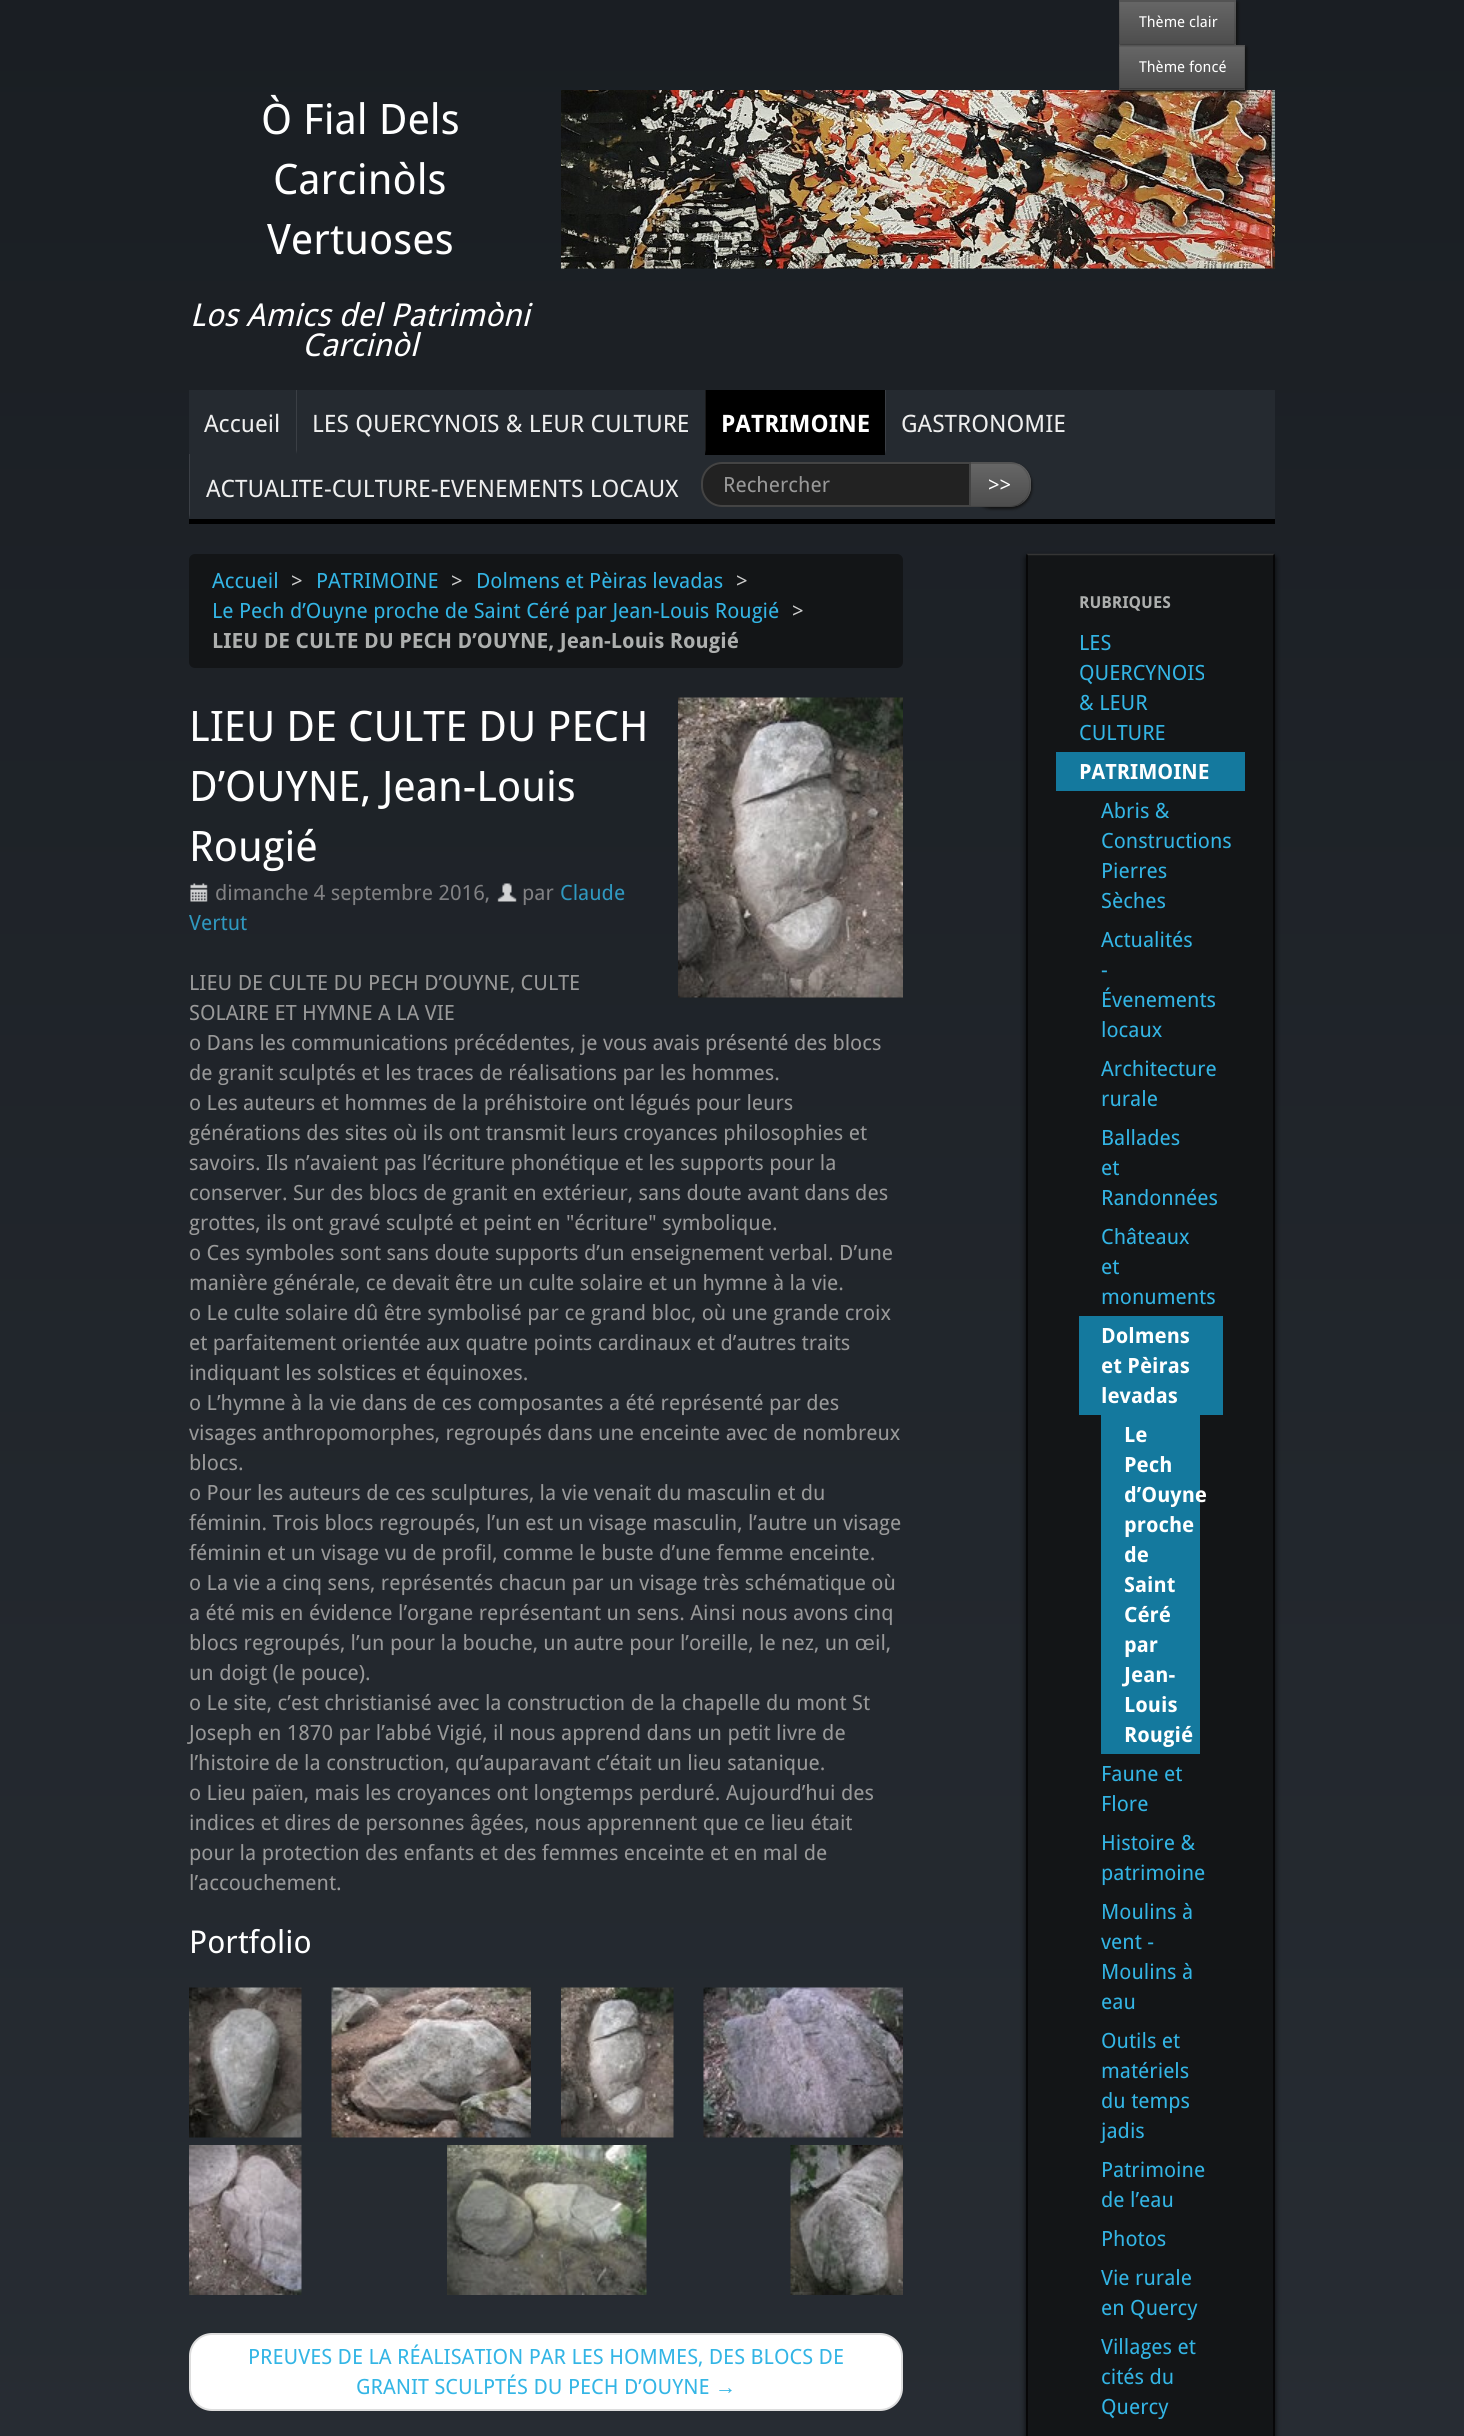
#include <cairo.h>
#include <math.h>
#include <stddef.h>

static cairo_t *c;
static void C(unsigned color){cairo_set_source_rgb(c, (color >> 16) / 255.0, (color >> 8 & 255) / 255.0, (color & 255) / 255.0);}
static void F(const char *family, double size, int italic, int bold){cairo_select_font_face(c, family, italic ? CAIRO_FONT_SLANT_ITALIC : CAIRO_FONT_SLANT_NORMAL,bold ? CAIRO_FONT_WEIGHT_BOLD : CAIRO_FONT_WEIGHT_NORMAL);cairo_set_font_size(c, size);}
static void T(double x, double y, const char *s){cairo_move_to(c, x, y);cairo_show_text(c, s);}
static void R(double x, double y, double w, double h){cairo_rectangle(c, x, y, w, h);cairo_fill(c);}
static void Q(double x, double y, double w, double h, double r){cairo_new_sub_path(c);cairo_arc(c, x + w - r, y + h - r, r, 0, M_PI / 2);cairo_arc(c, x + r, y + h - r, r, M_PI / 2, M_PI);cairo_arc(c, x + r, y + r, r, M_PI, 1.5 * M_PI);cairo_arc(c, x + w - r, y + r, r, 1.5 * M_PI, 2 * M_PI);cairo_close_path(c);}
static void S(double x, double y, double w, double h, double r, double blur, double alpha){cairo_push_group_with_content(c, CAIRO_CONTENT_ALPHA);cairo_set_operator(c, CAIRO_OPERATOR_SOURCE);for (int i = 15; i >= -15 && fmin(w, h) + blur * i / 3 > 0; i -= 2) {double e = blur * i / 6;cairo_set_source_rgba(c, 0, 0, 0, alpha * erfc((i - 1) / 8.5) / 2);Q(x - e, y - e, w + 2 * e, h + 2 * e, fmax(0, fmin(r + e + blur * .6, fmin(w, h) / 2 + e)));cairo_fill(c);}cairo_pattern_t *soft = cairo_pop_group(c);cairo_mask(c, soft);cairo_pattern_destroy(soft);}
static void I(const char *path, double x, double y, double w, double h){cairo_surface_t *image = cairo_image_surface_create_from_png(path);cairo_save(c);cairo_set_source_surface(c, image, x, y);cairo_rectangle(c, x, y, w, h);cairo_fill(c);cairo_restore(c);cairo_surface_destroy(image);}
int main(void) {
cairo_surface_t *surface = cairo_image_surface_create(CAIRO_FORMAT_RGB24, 1464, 2436);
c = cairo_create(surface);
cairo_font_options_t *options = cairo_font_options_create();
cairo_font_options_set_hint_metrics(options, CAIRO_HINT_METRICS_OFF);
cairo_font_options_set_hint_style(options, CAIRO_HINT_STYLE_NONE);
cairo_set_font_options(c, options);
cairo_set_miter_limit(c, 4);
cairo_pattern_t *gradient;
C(0xffffff);
cairo_paint(c);
gradient = cairo_pattern_create_linear(732,0,732,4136);
cairo_pattern_add_color_stop_rgba(gradient,0,0.102,0.118,0.137,1);
cairo_pattern_add_color_stop_rgba(gradient,1,0.188,0.212,0.243,1);
cairo_set_source(c,gradient);
cairo_pattern_destroy(gradient);
R(0,0,1464,2436);
C(0x111111);
S(1121,2,117,45,0,1.5,1);
C(0x5c5c5c);
R(1119,0,117,45);
gradient = cairo_pattern_create_linear(1178,1.5,1178,44);
cairo_pattern_add_color_stop_rgba(gradient,0,0.4,0.4,0.4,1);
cairo_pattern_add_color_stop_rgba(gradient,1,0.302,0.302,0.302,1);
cairo_set_source(c,gradient);
cairo_pattern_destroy(gradient);
R(1119,2,117,42);
C(0x535353);
cairo_new_path(c);
cairo_move_to(c,1119,0);
cairo_line_to(c,1236,0);
cairo_line_to(c,1234,2);
cairo_line_to(c,1120,2);
cairo_close_path(c);
cairo_fill(c);
cairo_set_source_rgba(c,0,0,0,0.1);
cairo_new_path(c);
cairo_move_to(c,1236,0);
cairo_line_to(c,1236,45);
cairo_line_to(c,1234,44);
cairo_line_to(c,1234,2);
cairo_close_path(c);
cairo_fill(c);
C(0x454545);
cairo_new_path(c);
cairo_move_to(c,1236,45);
cairo_line_to(c,1119,45);
cairo_line_to(c,1120,44);
cairo_line_to(c,1234,44);
cairo_close_path(c);
cairo_fill(c);
cairo_set_source_rgba(c,0,0,0,0.1);
cairo_new_path(c);
cairo_move_to(c,1119,45);
cairo_line_to(c,1119,0);
cairo_line_to(c,1120,2);
cairo_line_to(c,1120,44);
cairo_close_path(c);
cairo_fill(c);
F("Droid Sans",15,0,0);
C(0xffffff);
T(1139,27,"Thème clair");
I("1.png",561,90,714,179);
C(0x111111);
S(1121,47,126,45,0,1.5,1);
C(0x5c5c5c);
R(1119,45,126,45);
gradient = cairo_pattern_create_linear(1182,46,1182,89);
cairo_pattern_add_color_stop_rgba(gradient,0,0.4,0.4,0.4,1);
cairo_pattern_add_color_stop_rgba(gradient,1,0.302,0.302,0.302,1);
cairo_set_source(c,gradient);
cairo_pattern_destroy(gradient);
R(1119,47,126,42);
C(0x535353);
cairo_new_path(c);
cairo_move_to(c,1119,45);
cairo_line_to(c,1245,45);
cairo_line_to(c,1244,46);
cairo_line_to(c,1120,46);
cairo_close_path(c);
cairo_fill(c);
cairo_set_source_rgba(c,0,0,0,0.1);
cairo_new_path(c);
cairo_move_to(c,1245,45);
cairo_line_to(c,1245,90);
cairo_line_to(c,1244,88);
cairo_line_to(c,1244,46);
cairo_close_path(c);
cairo_fill(c);
cairo_set_source_rgba(c,0,0,0,0.25);
cairo_new_path(c);
cairo_move_to(c,1245,90);
cairo_line_to(c,1119,90);
cairo_line_to(c,1120,88);
cairo_line_to(c,1244,88);
cairo_close_path(c);
cairo_fill(c);
cairo_set_source_rgba(c,0,0,0,0.1);
cairo_new_path(c);
cairo_move_to(c,1119,90);
cairo_line_to(c,1119,45);
cairo_line_to(c,1120,46);
cairo_line_to(c,1120,88);
cairo_close_path(c);
cairo_fill(c);
C(0xffffff);
T(1139,72,"Thème foncé");
F("Droid Sans",42,0,0);
T(261,134,"Ò Fial Dels");
T(273,194,"Carcinòls");
T(267,254,"Vertuoses");
F("Droid Sans",31.5,1,0);
T(190,326,"Los Amics del Patrimòni");
T(302,356,"Carcinòl");
C(0x252a30);
R(189,390,1086,129);
C(0x000000);
R(189,519,1086,5);
F("Droid Sans",24,0,0);
C(0xeeeeee);
T(204,432,"Accueil");
C(0x3b3f45);
cairo_new_path(c);
cairo_move_to(c,296,454);
cairo_line_to(c,296,390);
cairo_line_to(c,297,390);
cairo_line_to(c,297,450);
cairo_close_path(c);
cairo_fill(c);
C(0xeeeeee);
T(312,432,"LES QUERCYNOIS & LEUR CULTURE");
C(0x000000);
R(705,390,180,65);
C(0x1a1a1a);
cairo_new_path(c);
cairo_move_to(c,705,454);
cairo_line_to(c,705,390);
cairo_line_to(c,706,390);
cairo_line_to(c,706,450);
cairo_close_path(c);
cairo_fill(c);
F("Droid Sans",24,0,1);
C(0xffffff);
T(721,432,"PATRIMOINE");
C(0x3b3f45);
cairo_new_path(c);
cairo_move_to(c,885,454);
cairo_line_to(c,885,390);
cairo_line_to(c,886,390);
cairo_line_to(c,886,450);
cairo_close_path(c);
cairo_fill(c);
F("Droid Sans",24,0,0);
C(0xeeeeee);
T(901,432,"GASTRONOMIE");
C(0x3b3f45);
cairo_new_path(c);
cairo_move_to(c,189,519);
cairo_line_to(c,189,454);
cairo_line_to(c,190,454);
cairo_line_to(c,190,514);
cairo_close_path(c);
cairo_fill(c);
C(0xeeeeee);
T(206,497,"ACTUALITE-CULTURE-EVENEMENTS LOCAUX");
C(0x111111);
S(971,464,61,45,21,1.5,1);
C(0x5c5c5c);
cairo_new_path(c);
cairo_move_to(c,969,462);
cairo_line_to(c,1010,462);
cairo_curve_to(c,1021.5,462,1031,471.5,1031,483);
cairo_line_to(c,1031,486);
cairo_curve_to(c,1031,497.5,1021.5,507,1010,507);
cairo_line_to(c,969,507);
cairo_close_path(c);
cairo_fill(c);
cairo_save(c);
cairo_new_path(c);
cairo_move_to(c,969,462);
cairo_line_to(c,1010,462);
cairo_curve_to(c,1021.5,462,1031,471.5,1031,483);
cairo_line_to(c,1031,486);
cairo_curve_to(c,1031,497.5,1021.5,507,1010,507);
cairo_line_to(c,969,507);
cairo_close_path(c);
cairo_clip(c);
gradient = cairo_pattern_create_linear(1000,464,1000,506);
cairo_pattern_add_color_stop_rgba(gradient,0,0.4,0.4,0.4,1);
cairo_pattern_add_color_stop_rgba(gradient,1,0.302,0.302,0.302,1);
cairo_set_source(c,gradient);
cairo_pattern_destroy(gradient);
R(971,464,60,42);
cairo_restore(c);
cairo_set_source_rgba(c,0,0,0,0.1);
cairo_new_path(c);
cairo_move_to(c,969,462);
cairo_line_to(c,971,464);
cairo_line_to(c,1010,464);
cairo_curve_to(c,1015,464,1020,466,1023,469);
cairo_line_to(c,1024,468);
cairo_curve_to(c,1021,464,1016,462,1010,462);
cairo_close_path(c);
cairo_fill(c);
cairo_new_path(c);
cairo_move_to(c,1024.5,468);
cairo_curve_to(c,1032,476.5,1032,492.5,1024.5,501);
cairo_line_to(c,1023.5,500);
cairo_curve_to(c,1031,492,1031.5,477,1023,469.5);
cairo_close_path(c);
cairo_fill(c);
cairo_set_source_rgba(c,0,0,0,0.25);
cairo_new_path(c);
cairo_move_to(c,1010,507);
cairo_curve_to(c,1016,507,1021,505,1024,501);
cairo_line_to(c,1023,500);
cairo_curve_to(c,1020,504,1015,506,1010,506);
cairo_line_to(c,970,506);
cairo_line_to(c,969,507);
cairo_close_path(c);
cairo_fill(c);
C(0x222222);
cairo_new_path(c);
cairo_move_to(c,722,462);
cairo_line_to(c,971,462);
cairo_line_to(c,971,507);
cairo_line_to(c,722,507);
cairo_curve_to(c,710.5,507,701,497.5,701,486);
cairo_line_to(c,701,483);
cairo_curve_to(c,701,471.5,710.5,462,722,462);
cairo_close_path(c);
cairo_fill(c);
C(0x1f1f1f);
cairo_new_path(c);
cairo_move_to(c,722,465);
cairo_line_to(c,969,465);
cairo_line_to(c,969,464);
cairo_line_to(c,722,464);
cairo_curve_to(c,711,464,702,473,702,484);
cairo_curve_to(c,702,474,711,465,722,465);
cairo_close_path(c);
cairo_fill(c);
cairo_new_path(c);
cairo_move_to(c,722,463);
cairo_line_to(c,970,463);
cairo_line_to(c,970,506);
cairo_line_to(c,722,506);
cairo_curve_to(c,711,506,702,497,702,486);
cairo_line_to(c,702,483);
cairo_curve_to(c,702,472,711,463,722,463);
cairo_close_path(c);
C(0x444444);
cairo_stroke(c);
F("Droid Sans",21,0,0);
C(0x999999);
T(723,492,"Rechercher");
C(0xffffff);
T(988,492,">>");
C(0x131517);
Q(189,554,714,114,6);
cairo_fill(c);
C(0x33b5e5);
T(212,588,"Accueil");
C(0xcccccc);
T(291,588,">");
C(0x33b5e5);
T(316,588,"PATRIMOINE");
C(0xcccccc);
T(451,588,">");
C(0x33b5e5);
T(476,588,"Dolmens et Pèiras levadas");
C(0xcccccc);
T(736,588,">");
C(0x33b5e5);
T(212,618,"Le Pech d’Ouyne proche de Saint Céré par Jean-Louis Rougié");
C(0xcccccc);
T(792,618,">");
F("Droid Sans",21,0,1);
C(0xadafae);
T(212,648,"LIEU DE CULTE DU PECH D’OUYNE, Jean-Louis Rougié");
F("Droid Sans",42,0,0);
C(0xffffff);
T(189,741,"LIEU DE CULTE DU PECH");
T(189,801,"D’OUYNE, Jean-Louis");
T(189,861,"Rougié");
I("2.png",678,697,225,301);
I("3.png",497,883,20,19);
F("Droid Sans",21,0,0);
C(0x818183);
T(522,900,"par");
C(0x2f98bf);
T(560,900,"Claude");
T(189,930,"Vertut");
I("4.png",190,883,18,19);
C(0x818183);
T(215,900,"dimanche 4 septembre 2016,");
C(0x999999);
T(189,990,"LIEU DE CULTE DU PECH D’OUYNE, CULTE");
T(189,1020,"SOLAIRE ET HYMNE A LA VIE");
T(189,1050,"o Dans les communications précédentes, je vous avais présenté des blocs");
T(189,1080,"de granit sculptés et les traces de réalisations par les hommes.");
T(189,1110,"o Les auteurs et hommes de la préhistoire ont légués pour leurs");
T(189,1140,"générations des sites où ils ont transmit leurs croyances philosophies et");
T(189,1170,"savoirs. Ils n’avaient pas l’écriture phonétique et les supports pour la");
T(189,1200,"conserver. Sur des blocs de granit en extérieur, sans doute avant dans des");
T(189,1230,"grottes, ils ont gravé sculpté et peint en \"écriture\" symbolique.");
T(189,1260,"o Ces symboles sont sans doute supports d’un enseignement verbal. D’une");
T(189,1290,"manière générale, ce devait être un culte solaire et un hymne à la vie.");
T(189,1320,"o Le culte solaire dû être symbolisé par ce grand bloc, où une grande croix");
T(189,1350,"et parfaitement orientée aux quatre points cardinaux et d’autres traits");
T(189,1380,"indiquant les solstices et équinoxes.");
T(189,1410,"o L’hymne à la vie dans de ces composantes a été représenté par des");
T(189,1440,"visages anthropomorphes, regroupés dans une enceinte avec de nombreux");
T(189,1470,"blocs.");
T(189,1500,"o Pour les auteurs de ces sculptures, la vie venait du masculin et du");
T(189,1530,"féminin. Trois blocs regroupés, l’un est un visage masculin, l’autre un visage");
T(189,1560,"féminin et un visage vu de profil, comme le buste d’une femme enceinte.");
T(189,1590,"o La vie a cinq sens, représentés chacun par un visage très schématique où");
T(189,1620,"a été mis en évidence l’organe représentant un sens. Ainsi nous avons cinq");
T(189,1650,"blocs regroupés, l’un pour la bouche, un autre pour l’oreille, le nez, un");
F("Liberation Sans",21,0,0);
T(855,1650,"œ");
F("Droid Sans",21,0,0);
T(875,1650,"il,");
T(189,1680,"un doigt (le pouce).");
T(189,1710,"o Le site, c’est christianisé avec la construction de la chapelle du mont St");
T(189,1740,"Joseph en 1870 par l’abbé Vigié, il nous apprend dans un petit livre de");
T(189,1770,"l’histoire de la construction, qu’auparavant c’était un lieu satanique.");
T(189,1800,"o Lieu païen, mais les croyances ont longtemps perduré. Aujourd’hui des");
T(189,1830,"indices et dires de personnes âgées, nous apprennent que ce lieu était");
T(189,1860,"pour la protection des enfants et des femmes enceinte et en mal de");
T(189,1890,"l’accouchement.");
F("Droid Sans",31.5,0,0);
C(0xffffff);
T(189,1953,"Portfolio");
I("5.png",189,1987,113,151);
I("6.png",331,1987,200,151);
I("7.png",561,1987,113,151);
I("8.png",703,1987,200,151);
I("9.png",189,2145,113,150);
I("10.png",447,2145,200,150);
I("11.png",790,2145,113,150);
Q(190,2334,712,76,22);
cairo_fill_preserve(c);
C(0xdddddd);
cairo_stroke(c);
F("Droid Sans",21,0,0);
C(0x33b5e5);
T(248,2364,"PREUVES DE LA RÉALISATION PAR LES HOMMES, DES BLOCS DE");
T(356,2394,"GRANIT SCULPTÉS DU PECH D’OUYNE");
F("Liberation Sans",21,0,0);
T(715,2394,"→");
C(0x000000);
S(1026,557,249,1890,1.5,3,.8);
C(0x131517);
Q(1026,554,249,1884,1.5);
cairo_fill(c);
cairo_new_path(c);
cairo_move_to(c,1027,554.5);
cairo_line_to(c,1274,554.5);
C(0x353535);
cairo_set_line_width(c,1.5);
cairo_stroke(c);
cairo_new_path(c);
cairo_move_to(c,1274,554.5);
cairo_line_to(c,1274,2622);
cairo_line_to(c,1273.5,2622.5);
cairo_line_to(c,1109.5,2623);
cairo_line_to(c,1027.5,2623);
cairo_line_to(c,1027,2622);
cairo_line_to(c,1027,554.5);
C(0x030303);
cairo_stroke(c);
F("Droid Sans",16.5,0,1);
C(0xadafae);
T(1079,608,"RUBRIQUES");
F("Droid Sans",21,0,0);
C(0x33b5e5);
T(1079,650,"LES");
T(1079,680,"QUERCYNOIS");
T(1079,710,"& LEUR");
T(1079,740,"CULTURE");
C(0x14799e);
R(1056,752,189,39);
F("Droid Sans",21,0,1);
C(0xffffff);
T(1079,779,"PATRIMOINE");
F("Droid Sans",21,0,0);
C(0x33b5e5);
T(1101,818,"Abris &");
T(1101,848,"Constructions");
T(1101,878,"Pierres");
T(1101,908,"Sèches");
T(1101,947,"Actualités");
T(1101,977,"-");
T(1101,1007,"Évenements");
T(1101,1037,"locaux");
T(1101,1076,"Architecture");
T(1101,1106,"rurale");
T(1101,1145,"Ballades");
T(1101,1175,"et");
T(1101,1205,"Randonnées");
T(1101,1244,"Châteaux");
T(1101,1274,"et");
T(1101,1304,"monuments");
C(0x14799e);
R(1079,1316,144,99);
F("Droid Sans",21,0,1);
C(0xffffff);
T(1101,1343,"Dolmens");
T(1101,1373,"et Pèiras");
T(1101,1403,"levadas");
C(0x14799e);
R(1101,1415,99,339);
C(0xffffff);
T(1124,1442,"Le");
T(1124,1472,"Pech");
T(1124,1502,"d’Ouyne");
T(1124,1532,"proche");
T(1124,1562,"de");
T(1124,1592,"Saint");
T(1124,1622,"Céré");
T(1124,1652,"par");
T(1124,1682,"Jean-");
T(1124,1712,"Louis");
T(1124,1742,"Rougié");
F("Droid Sans",21,0,0);
C(0x33b5e5);
T(1101,1781,"Faune et");
T(1101,1811,"Flore");
T(1101,1850,"Histoire &");
T(1101,1880,"patrimoine");
T(1101,1919,"Moulins à");
T(1101,1949,"vent -");
T(1101,1979,"Moulins à");
T(1101,2009,"eau");
T(1101,2048,"Outils et");
T(1101,2078,"matériels");
T(1101,2108,"du temps");
T(1101,2138,"jadis");
T(1101,2177,"Patrimoine");
T(1101,2207,"de l’eau");
T(1101,2246,"Photos");
T(1101,2285,"Vie rurale");
T(1101,2315,"en Quercy");
T(1101,2354,"Villages et");
T(1101,2384,"cités du");
T(1101,2414,"Quercy");
cairo_surface_write_to_png(surface, "o.png");
cairo_font_options_destroy(options);
cairo_destroy(c);
cairo_surface_destroy(surface);
return 0;
}
